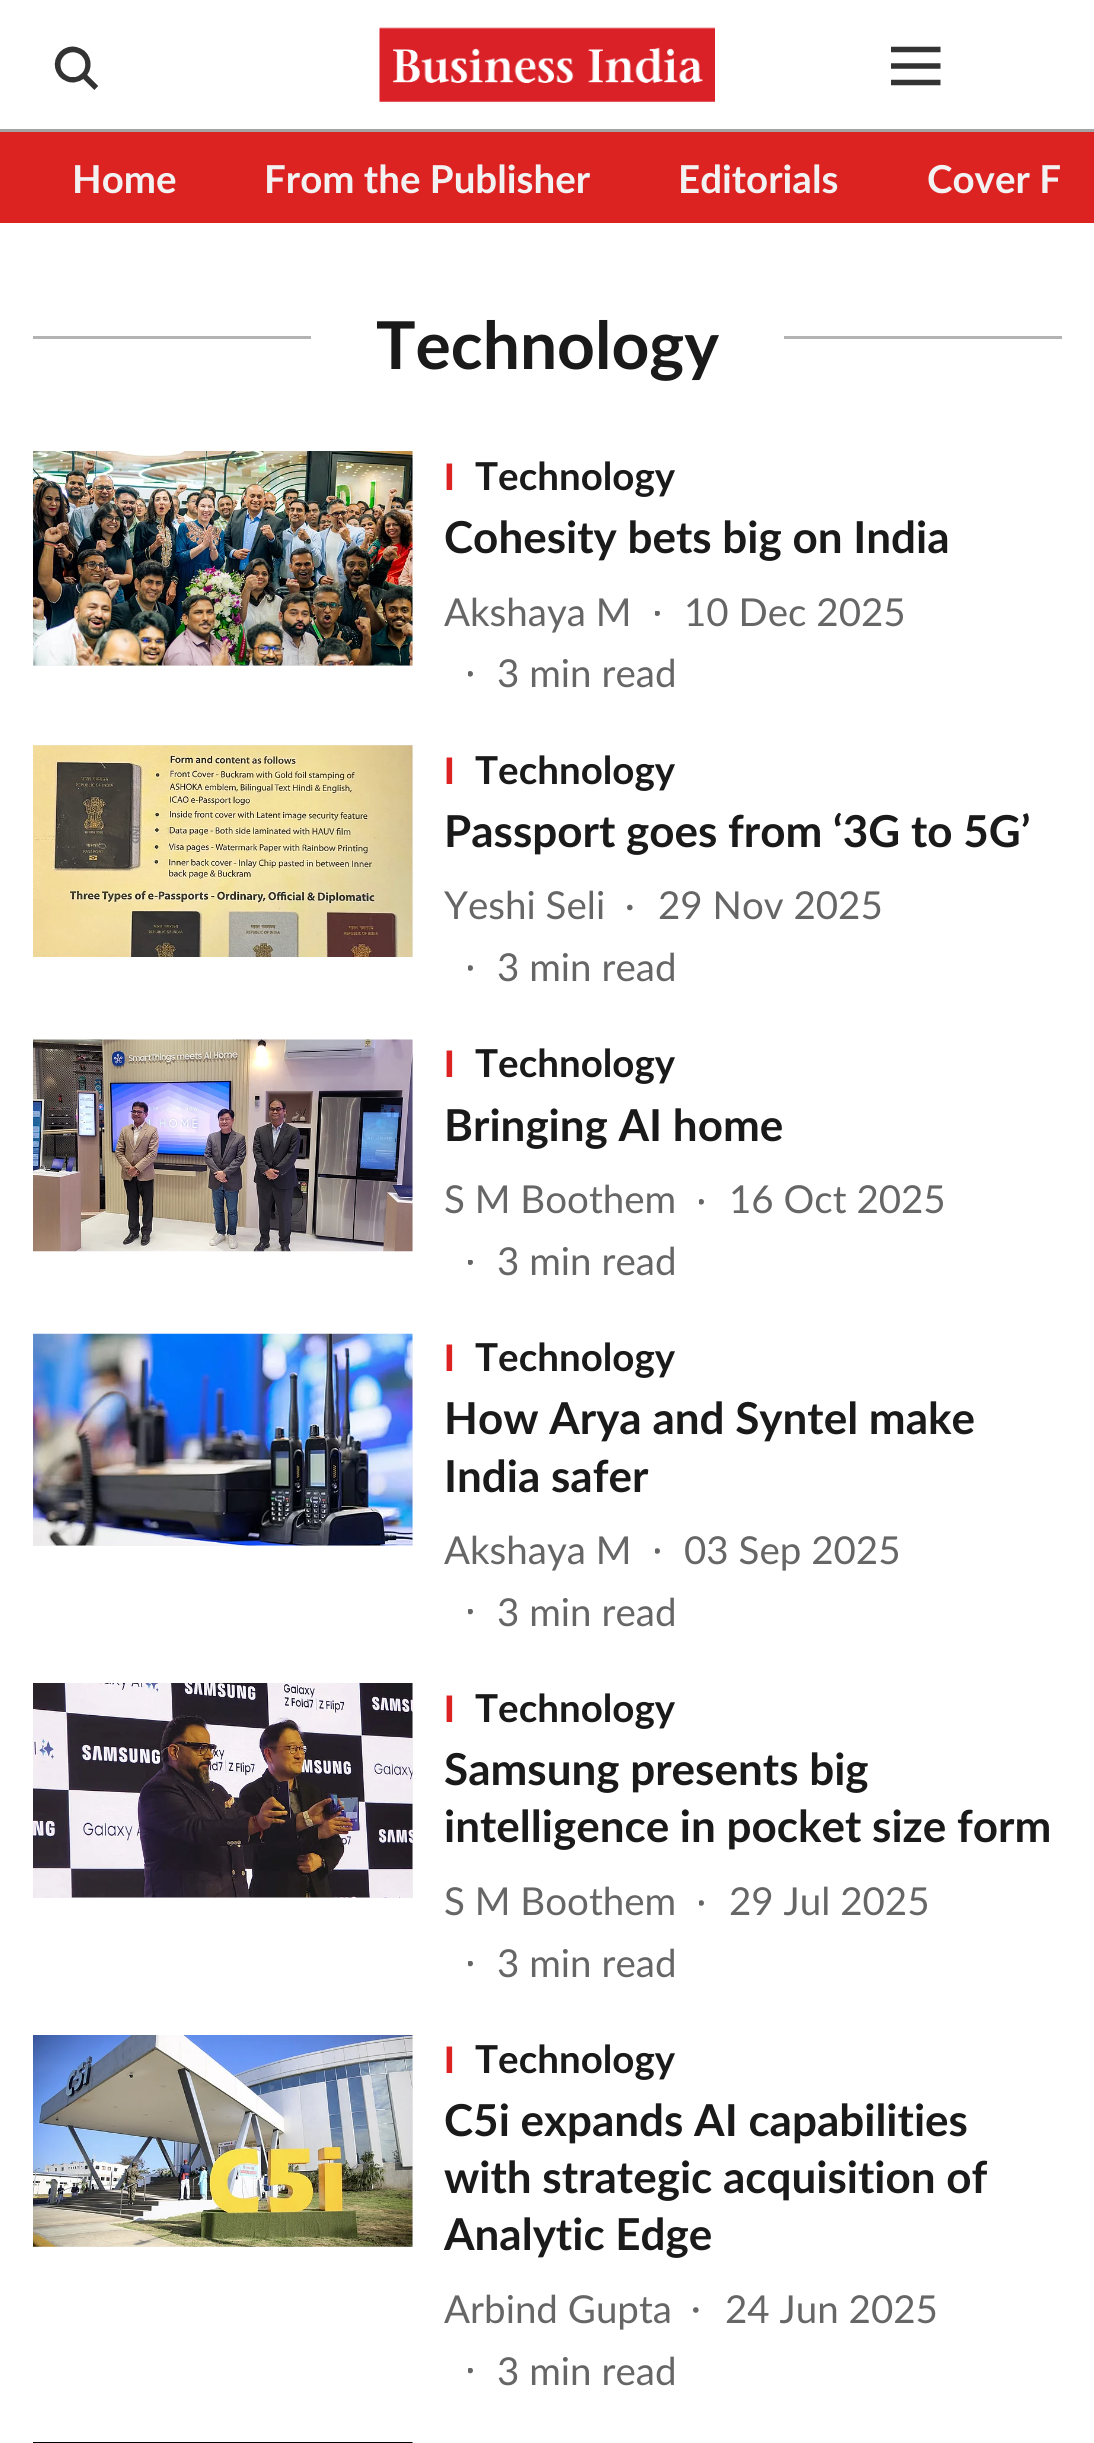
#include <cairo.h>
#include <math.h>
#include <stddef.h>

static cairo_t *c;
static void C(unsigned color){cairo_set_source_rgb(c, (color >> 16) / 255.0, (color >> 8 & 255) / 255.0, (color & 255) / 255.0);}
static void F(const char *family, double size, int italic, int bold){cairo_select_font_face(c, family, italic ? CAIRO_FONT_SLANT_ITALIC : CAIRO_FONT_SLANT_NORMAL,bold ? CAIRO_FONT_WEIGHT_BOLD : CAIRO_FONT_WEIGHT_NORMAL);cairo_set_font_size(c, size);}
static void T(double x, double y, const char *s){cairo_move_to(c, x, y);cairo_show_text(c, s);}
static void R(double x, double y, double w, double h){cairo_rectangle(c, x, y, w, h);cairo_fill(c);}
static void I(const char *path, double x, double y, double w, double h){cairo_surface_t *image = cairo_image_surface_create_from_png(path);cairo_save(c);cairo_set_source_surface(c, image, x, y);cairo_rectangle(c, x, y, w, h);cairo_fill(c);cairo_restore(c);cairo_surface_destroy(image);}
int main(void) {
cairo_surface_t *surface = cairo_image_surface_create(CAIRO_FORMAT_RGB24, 1094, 2443);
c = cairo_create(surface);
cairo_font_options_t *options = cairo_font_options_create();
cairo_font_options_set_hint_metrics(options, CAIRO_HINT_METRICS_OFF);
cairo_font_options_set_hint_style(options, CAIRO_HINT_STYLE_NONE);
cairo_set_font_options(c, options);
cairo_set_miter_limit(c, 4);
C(0xffffff);
cairo_paint(c);
C(0xa4a4a4);
R(0,129,1094,3);
I("1.png",379,27,336,75);
I("2.png",54,46,44,44);
I("3.png",891,46,50,40);
C(0xdd2222);
R(0,132,1094,91);
F("Lato",38.5,0,1);
C(0xf2f2f2);
T(72,193,"Home");
T(264,193,"From the Publisher");
T(678,193,"Editorials");
T(927,193,"Cover F");
C(0xb3b3b3);
R(33,336,278,3);
F("Lato",66,0,1);
C(0x1a1a1a);
T(376,369,"Technology");
C(0xb3b3b3);
R(784,336,278,3);
C(0xf0f0f0);
R(33,451,380,215);
I("4.png",33,451,380,215);
F("Liberation Sans",38.5,0,1);
C(0xdd2222);
T(444,490,"I");
F("Lato",38.5,0,1);
C(0x1a1a1a);
T(475,490,"Technology");
F("Lato",44,0,1);
T(444,553,"Cohesity bets big on India");
F("Lato",38.5,0,0);
C(0x666666);
T(444,626,"Akshaya M");
cairo_save(c);
cairo_rectangle(c,655,611,8,8);
cairo_clip(c);
cairo_arc(c,657.2,613.2,2.8,0,2 * M_PI);
cairo_fill(c);
cairo_restore(c);
T(684,626,"10 Dec 2025");
cairo_save(c);
cairo_rectangle(c,468,671,8,8);
cairo_clip(c);
cairo_arc(c,470.2,673.8,2.8,0,2 * M_PI);
cairo_fill(c);
cairo_restore(c);
T(497,687,"3 min read");
C(0xf0f0f0);
R(33,745,380,212);
I("5.png",33,745,380,212);
F("Liberation Sans",38.5,0,1);
C(0xdd2222);
T(444,784,"I");
F("Lato",38.5,0,1);
C(0x1a1a1a);
T(475,784,"Technology");
F("Lato",44,0,1);
T(444,847,"Passport goes from ‘3G to 5G’");
F("Lato",38.5,0,0);
C(0x666666);
T(444,919,"Yeshi Seli");
cairo_new_path(c);
cairo_arc(c,629.8,907.5,2.8,0,2 * M_PI);
cairo_fill(c);
T(658,919,"29 Nov 2025");
cairo_save(c);
cairo_rectangle(c,468,965,8,8);
cairo_clip(c);
cairo_arc(c,470.2,968,2.8,0,2 * M_PI);
cairo_fill(c);
cairo_restore(c);
T(497,981,"3 min read");
C(0xf0f0f0);
R(412,1040,1,211);
I("6.png",33,1039,380,213);
F("Liberation Sans",38.5,0,1);
C(0xdd2222);
T(444,1077,"I");
F("Lato",38.5,0,1);
C(0x1a1a1a);
T(475,1077,"Technology");
F("Lato",44,0,1);
T(444,1141,"Bringing AI home");
F("Lato",38.5,0,0);
C(0x666666);
T(444,1213,"S M Boothem");
cairo_save(c);
cairo_rectangle(c,699,1199,8,8);
cairo_clip(c);
cairo_arc(c,701.2,1201.8,2.8,0,2 * M_PI);
cairo_fill(c);
cairo_restore(c);
T(729,1213,"16 Oct 2025");
cairo_save(c);
cairo_rectangle(c,468,1260,8,8);
cairo_clip(c);
cairo_arc(c,470.2,1262.2,2.8,0,2 * M_PI);
cairo_fill(c);
cairo_restore(c);
T(497,1275,"3 min read");
C(0xf0f0f0);
R(33,1334,380,212);
I("7.png",33,1333,380,213);
F("Liberation Sans",38.5,0,1);
C(0xdd2222);
T(444,1371,"I");
F("Lato",38.5,0,1);
C(0x1a1a1a);
T(475,1371,"Technology");
F("Lato",44,0,1);
T(444,1434,"How Arya and Syntel make");
T(444,1492,"India safer");
F("Lato",38.5,0,0);
C(0x666666);
T(444,1564,"Akshaya M");
cairo_save(c);
cairo_rectangle(c,655,1548,8,8);
cairo_clip(c);
cairo_arc(c,657.2,1551,2.8,0,2 * M_PI);
cairo_fill(c);
cairo_restore(c);
T(684,1564,"03 Sep 2025");
cairo_save(c);
cairo_rectangle(c,468,1609,8,8);
cairo_clip(c);
cairo_arc(c,470.2,1611.5,2.8,0,2 * M_PI);
cairo_fill(c);
cairo_restore(c);
T(497,1626,"3 min read");
C(0xf0f0f0);
R(33,1683,380,215);
I("8.png",33,1683,380,215);
F("Liberation Sans",38.5,0,1);
C(0xdd2222);
T(444,1722,"I");
F("Lato",38.5,0,1);
C(0x1a1a1a);
T(475,1722,"Technology");
F("Lato",44,0,1);
T(444,1785,"Samsung presents big");
T(444,1842,"intelligence in pocket size form");
F("Lato",38.5,0,0);
C(0x666666);
T(444,1915,"S M Boothem");
cairo_save(c);
cairo_rectangle(c,699,1900,8,8);
cairo_clip(c);
cairo_arc(c,701.2,1903,2.8,0,2 * M_PI);
cairo_fill(c);
cairo_restore(c);
T(729,1915,"29 Jul 2025");
cairo_save(c);
cairo_rectangle(c,468,1961,8,8);
cairo_clip(c);
cairo_arc(c,470.2,1963.5,2.8,0,2 * M_PI);
cairo_fill(c);
cairo_restore(c);
T(497,1977,"3 min read");
C(0xf0f0f0);
R(33,2035,380,212);
I("9.png",33,2035,380,212);
F("Liberation Sans",38.5,0,1);
C(0xdd2222);
T(444,2073,"I");
F("Lato",38.5,0,1);
C(0x1a1a1a);
T(475,2073,"Technology");
F("Lato",44,0,1);
T(444,2136,"C5i expands AI capabilities");
T(444,2193,"with strategic acquisition of");
T(444,2250,"Analytic Edge");
F("Lato",38.5,0,0);
C(0x666666);
T(444,2323,"Arbind Gupta");
cairo_new_path(c);
cairo_arc(c,695.8,2310,2.8,0,2 * M_PI);
cairo_fill(c);
T(725,2323,"24 Jun 2025");
cairo_save(c);
cairo_rectangle(c,468,2368,8,8);
cairo_clip(c);
cairo_arc(c,470.2,2370.5,2.8,0,2 * M_PI);
cairo_fill(c);
cairo_restore(c);
T(497,2385,"3 min read");
C(0xf0f0f0);
R(412,2442,1,1);
I("10.png",33,2442,380,1);
cairo_surface_write_to_png(surface, "o.png");
cairo_font_options_destroy(options);
cairo_destroy(c);
cairo_surface_destroy(surface);
return 0;
}
